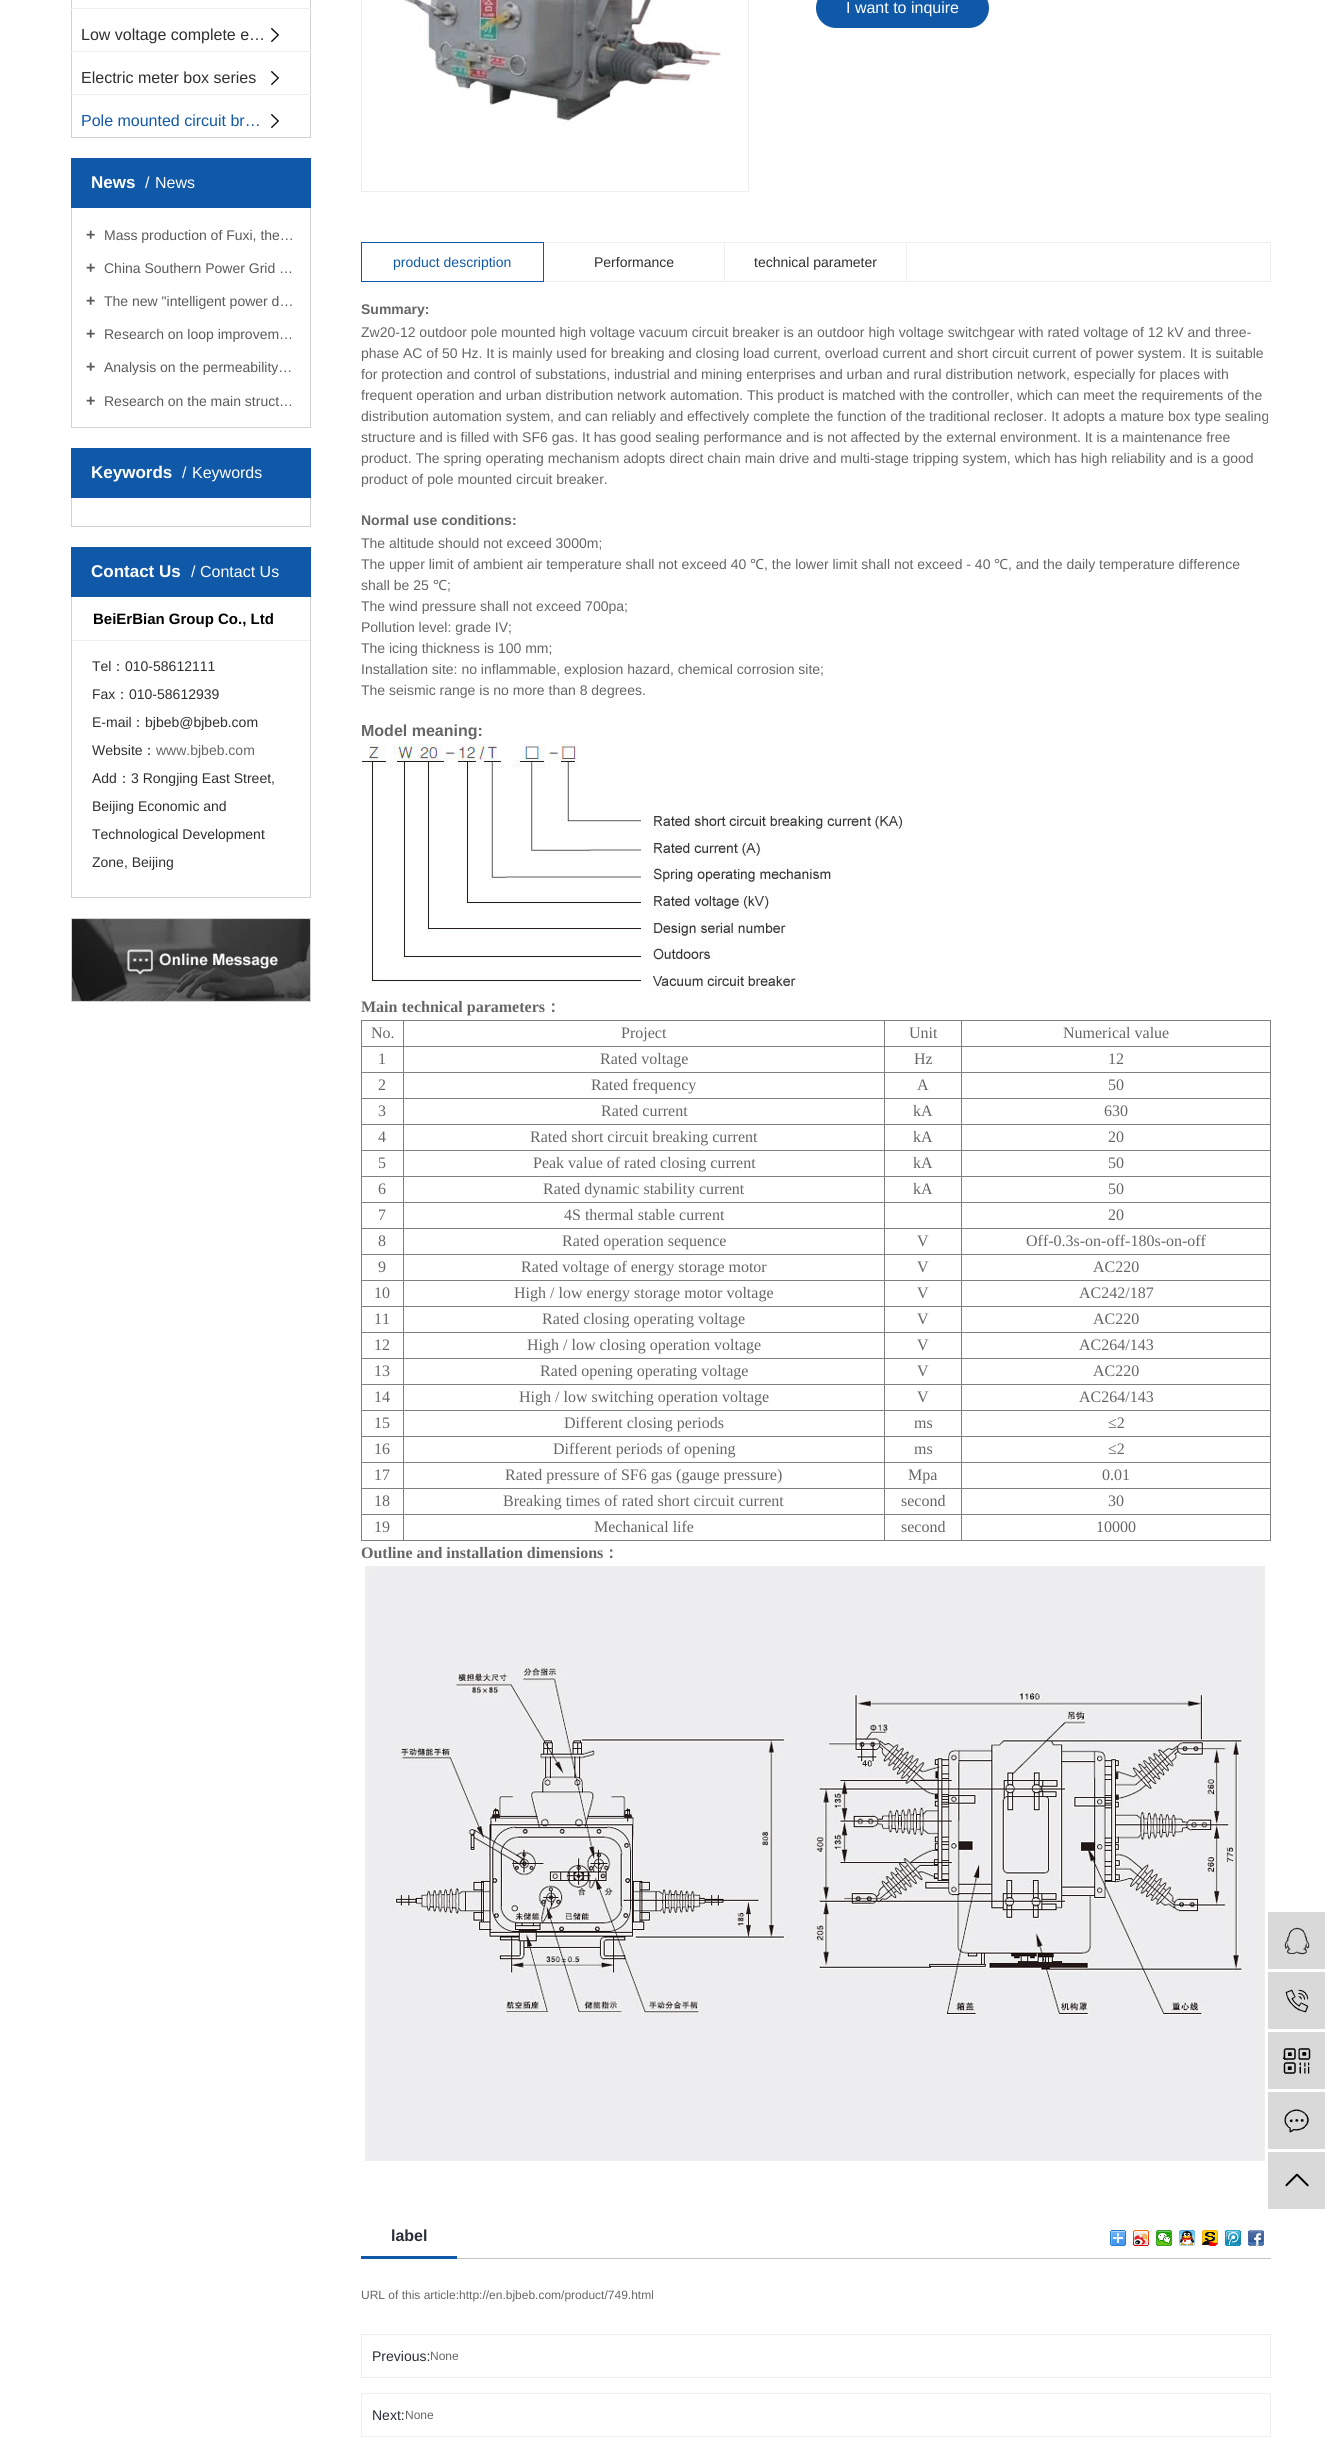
#include <cairo.h>
#include <math.h>
#include <stddef.h>

static cairo_t *c;
static void C(unsigned color){cairo_set_source_rgb(c, (color >> 16) / 255.0, (color >> 8 & 255) / 255.0, (color & 255) / 255.0);}
static void F(const char *family, double size, int italic, int bold){cairo_select_font_face(c, family, italic ? CAIRO_FONT_SLANT_ITALIC : CAIRO_FONT_SLANT_NORMAL,bold ? CAIRO_FONT_WEIGHT_BOLD : CAIRO_FONT_WEIGHT_NORMAL);cairo_set_font_size(c, size);}
static void T(double x, double y, const char *s){cairo_move_to(c, x, y);cairo_show_text(c, s);}
static void R(double x, double y, double w, double h){cairo_rectangle(c, x, y, w, h);cairo_fill(c);}
static void Q(double x, double y, double w, double h, double r){cairo_new_sub_path(c);cairo_arc(c, x + w - r, y + h - r, r, 0, M_PI / 2);cairo_arc(c, x + r, y + h - r, r, M_PI / 2, M_PI);cairo_arc(c, x + r, y + r, r, M_PI, 1.5 * M_PI);cairo_arc(c, x + w - r, y + r, r, 1.5 * M_PI, 2 * M_PI);cairo_close_path(c);}
static void I(const char *path, double x, double y, double w, double h){cairo_surface_t *image = cairo_image_surface_create_from_png(path);cairo_save(c);cairo_set_source_surface(c, image, x, y);cairo_rectangle(c, x, y, w, h);cairo_fill(c);cairo_restore(c);cairo_surface_destroy(image);}
int main(void) {
cairo_surface_t *surface = cairo_image_surface_create(CAIRO_FORMAT_RGB24, 1342, 2458);
c = cairo_create(surface);
cairo_font_options_t *options = cairo_font_options_create();
cairo_font_options_set_hint_metrics(options, CAIRO_HINT_METRICS_OFF);
cairo_font_options_set_hint_style(options, CAIRO_HINT_STYLE_NONE);
cairo_set_font_options(c, options);
cairo_set_miter_limit(c, 4);
C(0xffffff);
cairo_paint(c);
C(0xd2d2d2);
R(310,0,1,138);
R(71,137,240,1);
R(71,0,1,138);
C(0xeeeeee);
R(71,8,240,1);
R(71,51,240,1);
F("Liberation Sans",16,0,0);
C(0x2f2f2f);
T(81,40,"Low voltage complete e…");
I("1.png",271,28,8,14);
C(0xeeeeee);
R(71,94,240,1);
C(0x2f2f2f);
T(81,83,"Electric meter box series");
I("1.png",271,71,8,14);
C(0x1059a9);
T(81,126,"Pole mounted circuit br…");
I("1.png",271,114,8,14);
R(71,158,240,50);
F("Liberation Sans",17,0,1);
C(0xffffff);
T(91,188,"News");
F("Liberation Sans",16,0,0);
T(145,188,"/");
T(155,188,"News");
C(0xd2d2d2);
R(310,208,1,220);
R(71,427,240,1);
R(71,208,1,220);
F("Liberation Sans",16,0,1);
C(0x5a5a5a);
T(86,240,"+");
F("Liberation Sans",14,0,0);
T(104,240,"Mass production of Fuxi, the…");
F("Liberation Sans",16,0,1);
T(86,273,"+");
F("Liberation Sans",14,0,0);
T(104,273,"China Southern Power Grid …");
F("Liberation Sans",16,0,1);
T(86,306,"+");
F("Liberation Sans",14,0,0);
T(104,306,"The new \"intelligent power d…");
F("Liberation Sans",16,0,1);
T(86,339,"+");
F("Liberation Sans",14,0,0);
T(104,339,"Research on loop improvem…");
F("Liberation Sans",16,0,1);
T(86,372,"+");
F("Liberation Sans",14,0,0);
T(104,372,"Analysis on the permeability…");
F("Liberation Sans",16,0,1);
T(86,406,"+");
F("Liberation Sans",14,0,0);
T(104,406,"Research on the main struct…");
C(0x1059a9);
R(71,448,240,50);
F("Liberation Sans",17,0,1);
C(0xffffff);
T(91,478,"Keywords");
F("Liberation Sans",16,0,0);
T(182,478,"/");
T(192,478,"Keywords");
C(0xd2d2d2);
R(310,498,1,29);
R(71,526,240,1);
R(71,498,1,29);
C(0x1059a9);
R(71,547,240,50);
F("Liberation Sans",17,0,1);
C(0xffffff);
T(91,577,"Contact Us");
F("Liberation Sans",16,0,0);
T(191,577,"/");
T(200,577,"Contact Us");
C(0xd2d2d2);
R(310,597,1,301);
R(71,897,240,1);
R(71,597,1,301);
F("Liberation Sans",15,0,1);
C(0x000000);
T(93,624,"BeiErBian Group Co., Ltd");
C(0xeeeeee);
R(72,640,238,1);
F("Liberation Sans",14,0,0);
C(0x2f2f2f);
T(92,671,"Tel");
F("WenQuanYi Zen Hei Medium",14,0,0);
T(111,671,"：");
F("Liberation Sans",14,0,0);
T(125,671,"010-58612111");
T(92,699,"Fax");
F("WenQuanYi Zen Hei Medium",14,0,0);
T(115,699,"：");
F("Liberation Sans",14,0,0);
T(129,699,"010-58612939");
T(92,727,"E-mail");
F("WenQuanYi Zen Hei Medium",14,0,0);
T(131,727,"：");
F("Liberation Sans",14,0,0);
T(145,727,"bjbeb@bjbeb.com");
T(92,755,"Website");
F("WenQuanYi Zen Hei Medium",14,0,0);
T(142,755,"：");
F("Liberation Sans",14,0,0);
C(0x666666);
T(156,755,"www.bjbeb.com");
C(0x2f2f2f);
T(92,783,"Add");
F("WenQuanYi Zen Hei Medium",14,0,0);
T(117,783,"：");
F("Liberation Sans",14,0,0);
T(131,783,"3 Rongjing East Street,");
T(92,811,"Beijing Economic and");
T(92,839,"Technological Development");
T(92,867,"Zone, Beijing");
cairo_rectangle(c,71.5,918.5,239,83);
C(0xd2d2d2);
cairo_set_line_width(c,1);
cairo_stroke(c);
I("2.png",72,919,238,82);
cairo_rectangle(c,361.5,-.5,387,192);
C(0xeeeeee);
cairo_stroke(c);
I("3.png",403,0,318,123);
C(0x1059a9);
Q(816,-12,173,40,20);
cairo_fill(c);
F("Liberation Sans",16,0,0);
C(0xffffff);
T(846,13,"I want to inquire");
cairo_rectangle(c,361.5,242.5,909,39);
C(0xeeeeee);
cairo_stroke(c);
cairo_rectangle(c,361.5,242.5,182,39);
C(0x1059a9);
cairo_stroke(c);
F("Liberation Sans",14,0,0);
T(393,267,"product description");
C(0xeeeeee);
R(724,243,1,38);
C(0x2f2f2f);
T(594,267,"Performance");
C(0xeeeeee);
R(906,243,1,38);
C(0x2f2f2f);
T(754,267,"technical parameter");
F("Liberation Sans",14,0,1);
C(0x666666);
T(361,314,"Summary:");
F("Liberation Sans",14,0,0);
T(361,337,"Zw20-12 outdoor pole mounted high voltage vacuum circuit breaker is an outdoor high voltage switchgear with rated voltage of 12 kV and three-");
T(361,358,"phase AC of 50 Hz. It is mainly used for breaking and closing load current, overload current and short circuit current of power system. It is suitable");
T(361,379,"for protection and control of substations, industrial and mining enterprises and urban and rural distribution network, especially for places with");
T(361,400,"frequent operation and urban distribution network automation. This product is matched with the controller, which can meet the requirements of the");
T(361,421,"distribution automation system, and can reliably and effectively complete the function of the traditional recloser. It adopts a mature box type sealing");
T(361,442,"structure and is filled with SF6 gas. It has good sealing performance and is not affected by the external environment. It is a maintenance free");
T(361,463,"product. The spring operating mechanism adopts direct chain main drive and multi-stage tripping system, which has high reliability and is a good");
T(361,484,"product of pole mounted circuit breaker.");
F("Liberation Sans",14,0,1);
T(361,525,"Normal use conditions:");
F("Liberation Sans",14,0,0);
T(361,548,"The altitude should not exceed 3000m;");
T(361,569,"The upper limit of ambient air temperature shall not exceed 40");
F("Noto Sans",14,0,0);
T(750,569,"℃");
F("Liberation Sans",14,0,0);
T(764,569,", the lower limit shall not exceed - 40");
F("Noto Sans",14,0,0);
T(994,569,"℃");
F("Liberation Sans",14,0,0);
T(1008,569,", and the daily temperature difference");
T(361,590,"shall be 25");
F("Noto Sans",14,0,0);
T(433,590,"℃");
F("Liberation Sans",14,0,0);
T(447,590,";");
T(361,611,"The wind pressure shall not exceed 700pa;");
T(361,632,"Pollution level: grade IV;");
T(361,653,"The icing thickness is 100 mm;");
T(361,674,"Installation site: no inflammable, explosion hazard, chemical corrosion site;");
T(361,695,"The seismic range is no more than 8 degrees.");
F("Liberation Sans",16,0,1);
T(361,736,"Model meaning:");
I("4.png",361,744,544,248);
F("Liberation Serif",16,0,1);
T(361,1012,"Main technical parameters");
F("WenQuanYi Zen Hei",16,0,1);
T(545,1012,"：");
C(0x808080);
R(361,1020,910,1);
R(1270,1020,1,521);
R(361,1540,910,1);
R(361,1020,1,521);
F("Liberation Serif",16,0,0);
C(0x666666);
T(371,1038,"No.");
C(0x808080);
R(961,1046,310,1);
R(961,1072,310,1);
R(961,1098,310,1);
R(961,1124,310,1);
R(961,1150,310,1);
R(961,1176,310,1);
R(961,1202,310,1);
R(961,1228,310,1);
R(961,1254,310,1);
R(961,1280,310,1);
R(961,1306,310,1);
R(961,1332,310,1);
R(961,1358,310,1);
R(961,1384,310,1);
R(961,1410,310,1);
R(961,1436,310,1);
R(961,1462,310,1);
R(961,1488,310,1);
R(961,1514,310,1);
R(961,1514,1,27);
R(884,1514,78,1);
R(961,1488,1,27);
R(884,1488,78,1);
R(961,1462,1,27);
R(884,1462,78,1);
R(961,1436,1,27);
R(884,1436,78,1);
R(961,1410,1,27);
R(884,1410,78,1);
R(961,1384,1,27);
R(884,1384,78,1);
R(961,1358,1,27);
R(884,1358,78,1);
R(961,1332,1,27);
R(884,1332,78,1);
R(961,1306,1,27);
R(884,1306,78,1);
R(961,1280,1,27);
R(884,1280,78,1);
R(961,1254,1,27);
R(884,1254,78,1);
R(961,1228,1,27);
R(884,1228,78,1);
R(961,1202,1,27);
R(884,1202,78,1);
R(961,1176,1,27);
R(884,1176,78,1);
R(961,1150,1,27);
R(884,1150,78,1);
R(961,1124,1,27);
R(884,1124,78,1);
R(961,1098,1,27);
R(884,1098,78,1);
R(961,1072,1,27);
R(884,1072,78,1);
R(961,1046,1,27);
R(884,1046,78,1);
R(884,1514,1,27);
R(403,1514,482,1);
R(884,1488,1,27);
R(403,1488,482,1);
R(884,1462,1,27);
R(403,1462,482,1);
R(884,1436,1,27);
R(403,1436,482,1);
R(884,1410,1,27);
R(403,1410,482,1);
R(884,1384,1,27);
R(403,1384,482,1);
R(884,1358,1,27);
R(403,1358,482,1);
R(884,1332,1,27);
R(403,1332,482,1);
R(884,1306,1,27);
R(403,1306,482,1);
R(884,1280,1,27);
R(403,1280,482,1);
R(884,1254,1,27);
R(403,1254,482,1);
R(884,1228,1,27);
R(403,1228,482,1);
R(884,1202,1,27);
R(403,1202,482,1);
R(884,1176,1,27);
R(403,1176,482,1);
R(884,1150,1,27);
R(403,1150,482,1);
R(884,1124,1,27);
R(403,1124,482,1);
R(884,1098,1,27);
R(403,1098,482,1);
R(884,1072,1,27);
R(403,1072,482,1);
R(884,1046,1,27);
R(403,1046,482,1);
R(403,1514,1,27);
R(361,1514,43,1);
R(403,1488,1,27);
R(361,1488,43,1);
R(403,1462,1,27);
R(361,1462,43,1);
R(403,1436,1,27);
R(361,1436,43,1);
R(403,1410,1,27);
R(361,1410,43,1);
R(403,1384,1,27);
R(361,1384,43,1);
R(403,1358,1,27);
R(361,1358,43,1);
R(403,1332,1,27);
R(361,1332,43,1);
R(403,1306,1,27);
R(361,1306,43,1);
R(403,1280,1,27);
R(361,1280,43,1);
R(403,1254,1,27);
R(361,1254,43,1);
R(403,1228,1,27);
R(361,1228,43,1);
R(403,1202,1,27);
R(361,1202,43,1);
R(403,1176,1,27);
R(361,1176,43,1);
R(403,1150,1,27);
R(361,1150,43,1);
R(403,1124,1,27);
R(361,1124,43,1);
R(403,1098,1,27);
R(361,1098,43,1);
R(403,1072,1,27);
R(361,1072,43,1);
R(403,1046,1,27);
R(361,1046,43,1);
R(403,1020,1,27);
C(0x666666);
T(621,1038,"Project");
C(0x808080);
R(884,1020,1,27);
C(0x666666);
T(909,1038,"Unit");
C(0x808080);
R(961,1020,1,27);
C(0x666666);
T(1063,1038,"Numerical value");
T(378,1064,"1");
T(600,1064,"Rated voltage");
T(914,1064,"Hz");
T(1108,1064,"12");
T(378,1090,"2");
T(591,1090,"Rated frequency");
T(917,1090,"A");
T(1108,1090,"50");
T(378,1116,"3");
T(601,1116,"Rated current");
T(913,1116,"kA");
T(1104,1116,"630");
T(378,1142,"4");
T(530,1142,"Rated short circuit breaking current");
T(913,1142,"kA");
T(1108,1142,"20");
T(378,1168,"5");
T(533,1168,"Peak value of rated closing current");
T(913,1168,"kA");
T(1108,1168,"50");
T(378,1194,"6");
T(543,1194,"Rated dynamic stability current");
T(913,1194,"kA");
T(1108,1194,"50");
T(378,1220,"7");
T(564,1220,"4S thermal stable current");
T(1108,1220,"20");
T(378,1246,"8");
T(562,1246,"Rated operation sequence");
T(917,1246,"V");
T(1026,1246,"Off-0.3s-on-off-180s-on-off");
T(378,1272,"9");
T(521,1272,"Rated voltage of energy storage motor");
T(917,1272,"V");
T(1093,1272,"AC220");
T(374,1298,"10");
T(514,1298,"High / low energy storage motor voltage");
T(917,1298,"V");
T(1079,1298,"AC242/187");
T(374,1324,"11");
T(542,1324,"Rated closing operating voltage");
T(917,1324,"V");
T(1093,1324,"AC220");
T(374,1350,"12");
T(527,1350,"High / low closing operation voltage");
T(917,1350,"V");
T(1079,1350,"AC264/143");
T(374,1376,"13");
T(540,1376,"Rated opening operating voltage");
T(917,1376,"V");
T(1093,1376,"AC220");
T(374,1402,"14");
T(519,1402,"High / low switching operation voltage");
T(917,1402,"V");
T(1079,1402,"AC264/143");
T(374,1428,"15");
T(564,1428,"Different closing periods");
T(914,1428,"ms");
T(1108,1428,"≤2");
T(374,1454,"16");
T(553,1454,"Different periods of opening");
T(914,1454,"ms");
T(1108,1454,"≤2");
T(374,1480,"17");
T(505,1480,"Rated pressure of SF6 gas (gauge pressure)");
T(908,1480,"Mpa");
T(1102,1480,"0.01");
T(374,1506,"18");
T(503,1506,"Breaking times of rated short circuit current");
T(901,1506,"second");
T(1108,1506,"30");
T(374,1532,"19");
T(594,1532,"Mechanical life");
T(901,1532,"second");
T(1096,1532,"10000");
F("Liberation Serif",16,0,1);
T(361,1558,"Outline and installation dimensions");
F("WenQuanYi Zen Hei",16,0,1);
T(603,1558,"：");
I("5.png",365,1566,900,595);
C(0xc3c3c3);
R(457,2258,814,1);
C(0x1059a9);
R(361,2256,96,3);
F("Liberation Sans",16,0,1);
C(0x292e39);
T(391,2241,"label");
I("6.png",1110,2230,16,16);
I("7.png",1133,2230,16,16);
I("8.png",1156,2230,16,16);
I("9.png",1179,2230,16,16);
I("10.png",1202,2230,16,16);
I("11.png",1225,2230,16,16);
I("12.png",1248,2230,16,16);
F("Liberation Sans",12,0,0);
C(0x666666);
T(361,2299,"URL of this article:http://en.bjbeb.com/product/749.html");
cairo_rectangle(c,361.5,2334.5,909,43);
C(0xeeeeee);
cairo_stroke(c);
F("Liberation Sans",14,0,0);
C(0x292e39);
T(372,2361,"Previous:");
F("Liberation Sans",12,0,0);
C(0x666666);
T(430,2360,"None");
cairo_rectangle(c,361.5,2393.5,909,43);
C(0xeeeeee);
cairo_stroke(c);
F("Liberation Sans",14,0,0);
C(0x292e39);
T(372,2420,"Next:");
F("Liberation Sans",12,0,0);
C(0x666666);
T(405,2419,"None");
C(0xd9d9d9);
R(1268,1912,57,57);
I("13.png",1284,1927,26,28);
R(1268,1972,57,57);
I("14.png",1285,1989,24,24);
R(1268,2032,57,57);
I("15.png",1283,2048,28,26);
R(1268,2092,57,57);
I("16.png",1284,2109,25,24);
R(1268,2152,57,57);
I("17.png",1285,2173,24,14);
cairo_surface_write_to_png(surface, "o.png");
cairo_font_options_destroy(options);
cairo_destroy(c);
cairo_surface_destroy(surface);
return 0;
}
